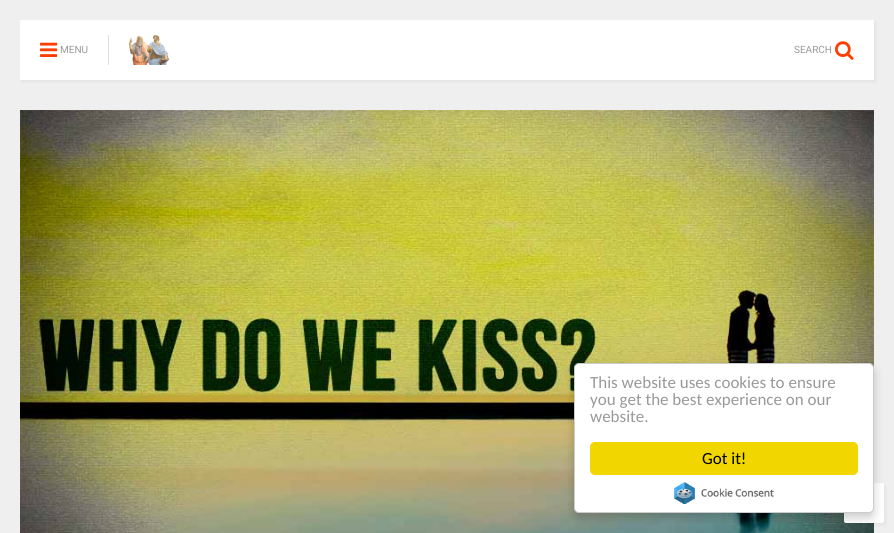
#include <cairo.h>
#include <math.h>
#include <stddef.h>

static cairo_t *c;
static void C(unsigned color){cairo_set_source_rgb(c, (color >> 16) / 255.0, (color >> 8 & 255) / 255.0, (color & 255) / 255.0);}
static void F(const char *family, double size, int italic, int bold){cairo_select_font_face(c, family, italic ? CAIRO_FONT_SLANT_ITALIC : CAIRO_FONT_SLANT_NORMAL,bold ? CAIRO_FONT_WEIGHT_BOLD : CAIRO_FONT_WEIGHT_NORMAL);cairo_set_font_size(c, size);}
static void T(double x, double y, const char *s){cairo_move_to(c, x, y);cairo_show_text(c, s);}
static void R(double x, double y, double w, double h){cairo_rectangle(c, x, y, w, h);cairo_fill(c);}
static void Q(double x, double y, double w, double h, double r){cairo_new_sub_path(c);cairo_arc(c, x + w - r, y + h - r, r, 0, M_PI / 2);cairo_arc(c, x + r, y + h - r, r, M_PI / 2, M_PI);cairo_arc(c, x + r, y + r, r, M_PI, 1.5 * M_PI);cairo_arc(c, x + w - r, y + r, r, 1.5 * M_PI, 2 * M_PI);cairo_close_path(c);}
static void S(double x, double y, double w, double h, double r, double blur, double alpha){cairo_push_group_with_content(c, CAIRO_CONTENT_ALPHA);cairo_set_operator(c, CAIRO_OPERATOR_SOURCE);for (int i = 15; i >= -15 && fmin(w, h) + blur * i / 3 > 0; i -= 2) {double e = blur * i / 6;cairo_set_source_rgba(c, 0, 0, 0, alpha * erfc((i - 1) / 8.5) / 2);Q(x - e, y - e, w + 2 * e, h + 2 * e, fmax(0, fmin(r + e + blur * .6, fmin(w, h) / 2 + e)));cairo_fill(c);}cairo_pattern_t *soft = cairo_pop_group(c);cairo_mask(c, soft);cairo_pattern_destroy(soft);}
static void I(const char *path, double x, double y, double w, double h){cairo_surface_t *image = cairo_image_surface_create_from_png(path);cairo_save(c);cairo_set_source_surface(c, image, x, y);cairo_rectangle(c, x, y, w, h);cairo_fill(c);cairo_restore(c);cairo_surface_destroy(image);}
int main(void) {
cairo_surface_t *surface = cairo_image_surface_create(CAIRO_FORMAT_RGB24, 894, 533);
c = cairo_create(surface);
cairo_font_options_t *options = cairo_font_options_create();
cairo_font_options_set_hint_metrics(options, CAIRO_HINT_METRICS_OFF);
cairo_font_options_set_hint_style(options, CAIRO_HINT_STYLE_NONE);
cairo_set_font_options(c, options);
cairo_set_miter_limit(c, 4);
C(0xefefef);
cairo_paint(c);
C(0x000000);
S(22,22,854,60,0,1.5,.05);
C(0xffffff);
R(20,20,854,60);
I("1.png",40,42,18,15);
F("Roboto",10,0,0);
C(0x999999);
T(60,53,"MENU");
C(0xdddddd);
R(108,35,1,30);
I("2.png",129,35,40,30);
C(0x999999);
T(794,53,"SEARCH");
I("3.png",835,41,19,19);
I("4.png",20,110,854,423);
C(0x000000);
S(846,485,40,40,2,1.5,.05);
C(0xffffff);
Q(844,483,40,40,2);
cairo_fill(c);
C(0x000000);
S(574,368,300,150,5,5,.2);
C(0xffffff);
Q(574.5,363.5,299,149,4.5);
cairo_fill_preserve(c);
C(0xcccccc);
cairo_set_line_width(c,1);
cairo_stroke(c);
F("Carlito",17,0,0);
C(0x999999);
T(590,388,"This website uses cookies to ensure");
T(590,405,"you get the best experience on our");
T(590,422,"website.");
C(0xf1d600);
Q(590,442,268,33,5);
cairo_fill(c);
C(0x000000);
T(702,464,"Got it!");
I("5.png",674,482,100,22);
cairo_surface_write_to_png(surface, "o.png");
cairo_font_options_destroy(options);
cairo_destroy(c);
cairo_surface_destroy(surface);
return 0;
}
